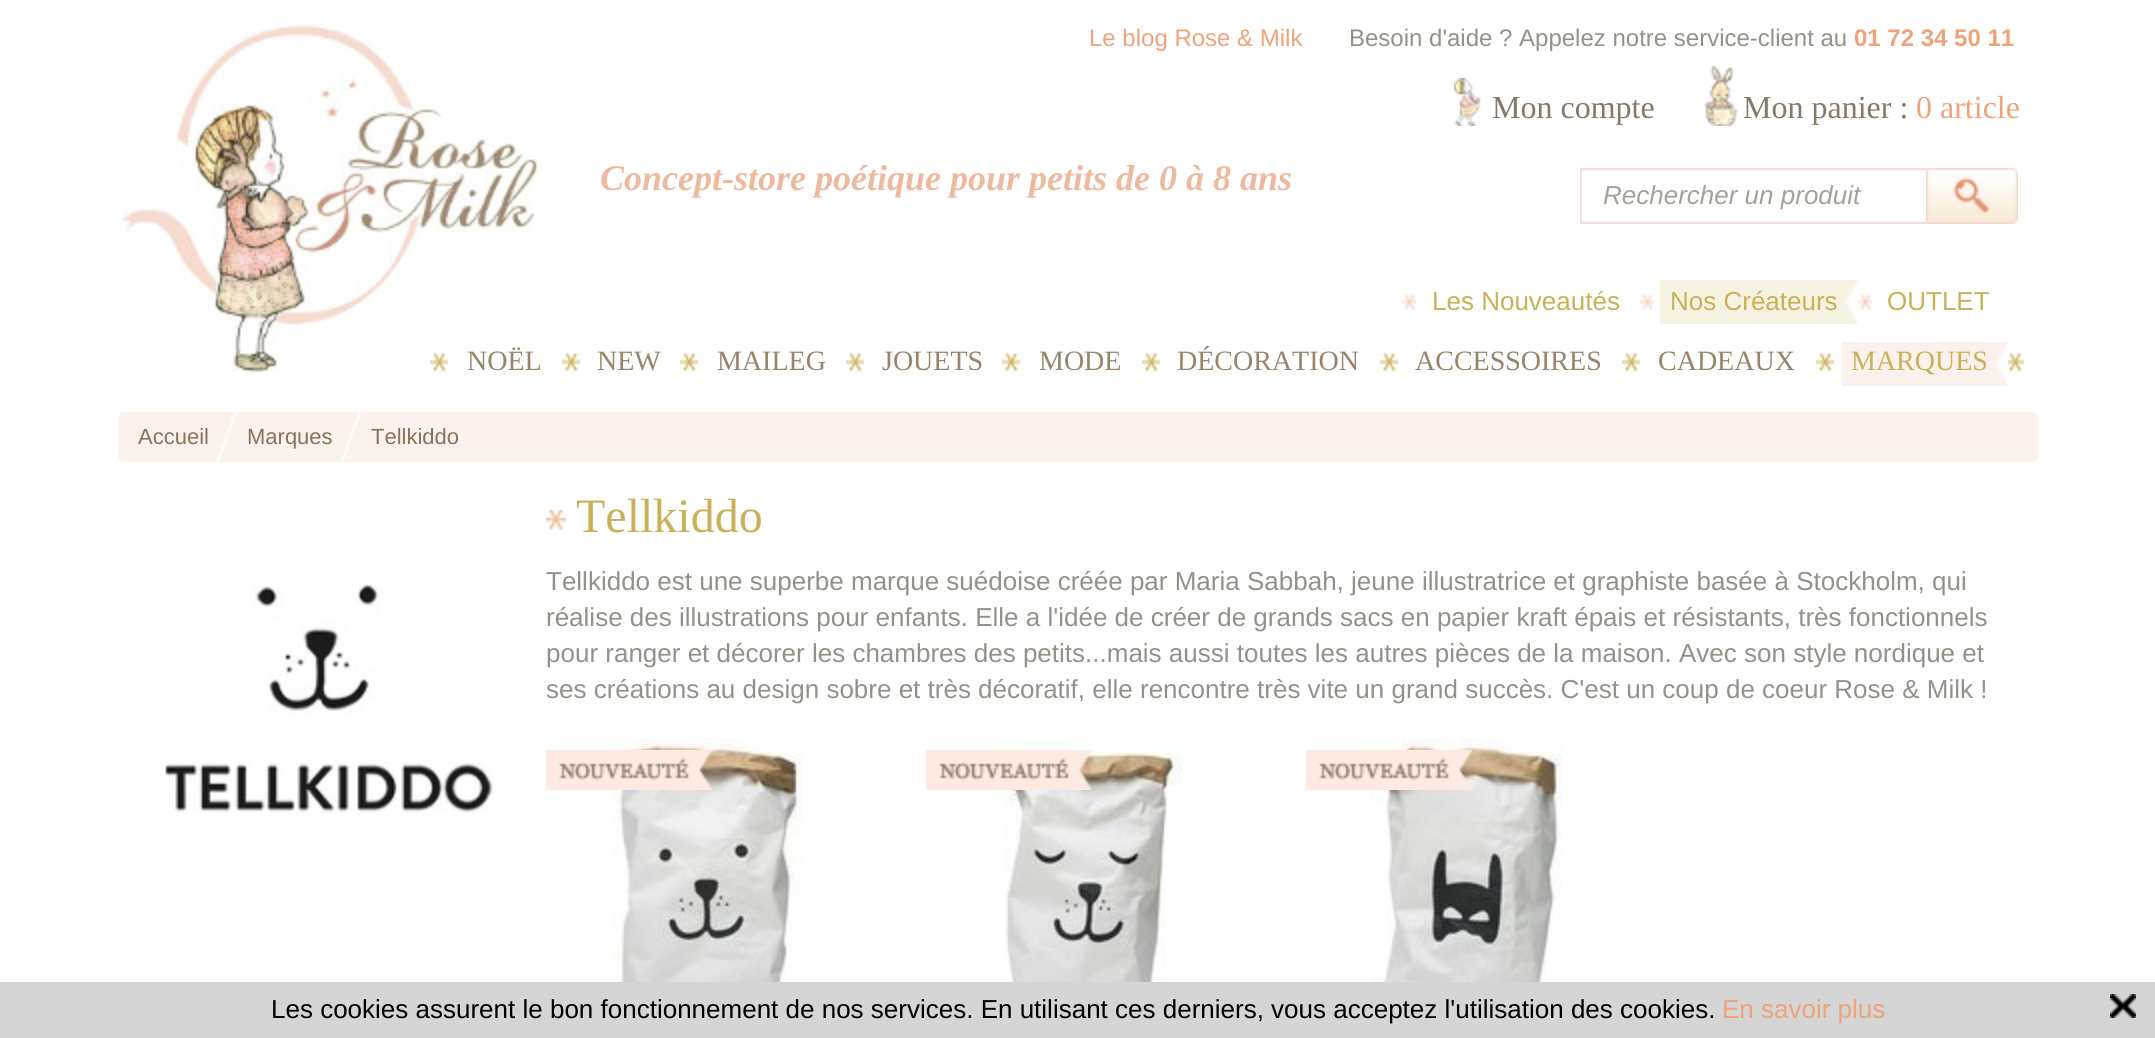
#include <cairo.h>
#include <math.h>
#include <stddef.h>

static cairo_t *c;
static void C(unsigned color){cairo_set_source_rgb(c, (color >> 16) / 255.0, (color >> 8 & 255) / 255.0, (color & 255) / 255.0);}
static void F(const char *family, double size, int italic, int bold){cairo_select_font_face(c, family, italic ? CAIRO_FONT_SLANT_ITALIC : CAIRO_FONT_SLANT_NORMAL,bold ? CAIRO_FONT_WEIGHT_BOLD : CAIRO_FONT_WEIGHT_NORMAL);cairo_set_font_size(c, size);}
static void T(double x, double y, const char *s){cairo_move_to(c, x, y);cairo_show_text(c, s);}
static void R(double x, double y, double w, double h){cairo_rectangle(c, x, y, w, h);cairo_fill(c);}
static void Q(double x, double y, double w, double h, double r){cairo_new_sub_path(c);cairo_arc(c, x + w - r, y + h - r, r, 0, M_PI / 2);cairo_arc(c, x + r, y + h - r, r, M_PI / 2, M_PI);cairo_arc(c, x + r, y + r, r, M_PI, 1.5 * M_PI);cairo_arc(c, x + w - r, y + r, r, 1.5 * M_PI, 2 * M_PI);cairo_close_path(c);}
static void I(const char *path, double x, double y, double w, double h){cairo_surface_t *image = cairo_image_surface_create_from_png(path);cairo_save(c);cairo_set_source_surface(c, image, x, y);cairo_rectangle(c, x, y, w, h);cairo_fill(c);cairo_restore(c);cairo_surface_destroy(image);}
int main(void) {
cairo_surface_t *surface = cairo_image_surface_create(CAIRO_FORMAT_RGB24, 2155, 1038);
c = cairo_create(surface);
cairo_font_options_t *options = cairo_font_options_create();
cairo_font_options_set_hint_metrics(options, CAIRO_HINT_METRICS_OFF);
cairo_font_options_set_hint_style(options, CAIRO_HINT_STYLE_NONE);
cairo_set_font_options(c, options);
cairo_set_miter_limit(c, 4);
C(0xffffff);
cairo_paint(c);
I("1.png",118,24,420,348);
F("Liberation Sans",24,0,0);
C(0xeea37b);
T(1089,46,"Le blog Rose & Milk");
C(0x949189);
T(1349,46,"Besoin d'aide ? Appelez notre service-client au");
F("Liberation Sans",24,0,1);
C(0xeea37b);
T(1854,46,"01 72 34 50 11");
I("2.png",1454,78,27,48);
F("Liberation Serif",32,0,0);
C(0x877869);
T(1492,118,"Mon compte");
I("3.png",1704,66,34,60);
T(1743,118,"Mon panier :");
C(0xeea37b);
T(1916,118,"0 article");
F("Liberation Serif",36,1,1);
C(0xeeba9f);
T(600,190,"Concept-store poétique pour petits de 0 à 8 ans");
C(0xf9ddda);
R(1580,168,346,2);
R(1580,222,346,2);
R(1580,168,2,56);
F("Liberation Sans",26,1,0);
C(0xa5a299);
T(1603,204,"Rechercher un produit");
I("4.png",1926,168,92,56);
I("5.png",1402,294,14,16);
F("Liberation Sans",26,0,0);
C(0xcab157);
T(1432,310,"Les Nouveautés");
I("5.png",1640,294,14,16);
C(0xf7f3e3);
R(1660,280,186,44);
I("6.png",1846,280,12,44);
C(0xcab157);
T(1670,310,"Nos Créateurs");
I("5.png",1858,294,14,16);
T(1887,310,"OUTLET");
I("7.png",2008,352,16,20);
I("8.png",430,352,18,20);
F("Liberation Serif",28,0,0);
C(0x9a8469);
T(467,370,"NOËL");
I("8.png",562,352,18,20);
T(597,370,"NEW");
I("8.png",680,352,18,20);
T(717,370,"MAILEG");
I("8.png",846,352,18,20);
T(882,370,"JOUETS");
I("8.png",1002,352,18,20);
T(1039,370,"MODE");
I("8.png",1142,352,18,20);
T(1177,370,"DÉCORATION");
I("8.png",1380,352,18,20);
T(1415,370,"ACCESSOIRES");
I("8.png",1622,352,18,20);
T(1658,370,"CADEAUX");
I("8.png",1816,352,18,20);
C(0xfcf2ed);
R(1842,342,154,44);
I("9.png",1996,342,12,44);
C(0xcab157);
T(1851,370,"MARQUES");
C(0xfcf2ed);
Q(118,412,1920,50,6);
cairo_fill(c);
F("Liberation Sans",22,0,0);
C(0x897358);
T(138,444,"Accueil");
I("10.png",216,412,22,50);
T(247,444,"Marques");
I("10.png",340,412,22,50);
T(371,444,"Tellkiddo");
I("11.png",165,583,328,230);
I("12.png",546,510,20,20);
F("Liberation Serif",48,0,0);
C(0xcab157);
T(576,532,"Tellkiddo");
F("Liberation Sans",26,0,0);
C(0x949189);
T(546,590,"Tellkiddo est une superbe marque suédoise créée par Maria Sabbah, jeune illustratrice et graphiste basée à Stockholm, qui");
T(546,626,"réalise des illustrations pour enfants. Elle a l'idée de créer de grands sacs en papier kraft épais et résistants, très fonctionnels");
T(546,662,"pour ranger et décorer les chambres des petits...mais aussi toutes les autres pièces de la maison. Avec son style nordique et");
T(546,698,"ses créations au design sobre et très décoratif, elle rencontre très vite un grand succès. C'est un coup de coeur Rose & Milk !");
I("13.png",609,738,193,244);
I("14.png",546,750,166,40);
I("15.png",992,738,191,244);
I("16.png",926,750,166,40);
I("17.png",1370,738,192,244);
I("18.png",1306,750,166,40);
C(0xd5d5d5);
R(0,982,2155,56);
C(0x000000);
T(271,1018,"Les cookies assurent le bon fonctionnement de nos services. En utilisant ces derniers, vous acceptez l'utilisation des cookies.");
C(0xeea37b);
T(1722,1018,"En savoir plus");
I("19.png",2110,994,26,24);
cairo_surface_write_to_png(surface, "o.png");
cairo_font_options_destroy(options);
cairo_destroy(c);
cairo_surface_destroy(surface);
return 0;
}
